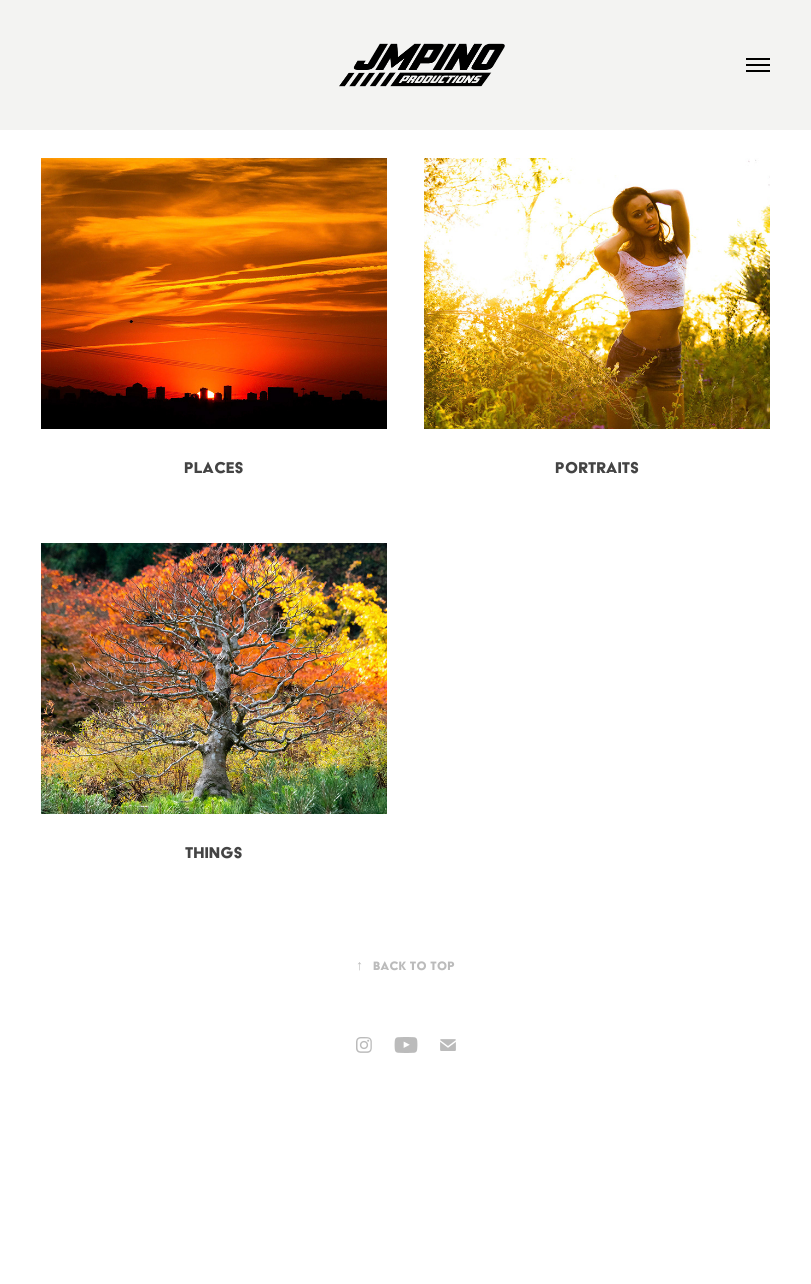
#include <cairo.h>
#include <math.h>
#include <stddef.h>

static cairo_t *c;
static void C(unsigned color){cairo_set_source_rgb(c, (color >> 16) / 255.0, (color >> 8 & 255) / 255.0, (color & 255) / 255.0);}
static void F(const char *family, double size, int italic, int bold){cairo_select_font_face(c, family, italic ? CAIRO_FONT_SLANT_ITALIC : CAIRO_FONT_SLANT_NORMAL,bold ? CAIRO_FONT_WEIGHT_BOLD : CAIRO_FONT_WEIGHT_NORMAL);cairo_set_font_size(c, size);}
static void T(double x, double y, const char *s){cairo_move_to(c, x, y);cairo_show_text(c, s);}
static void R(double x, double y, double w, double h){cairo_rectangle(c, x, y, w, h);cairo_fill(c);}
static void I(const char *path, double x, double y, double w, double h){cairo_surface_t *image = cairo_image_surface_create_from_png(path);cairo_save(c);cairo_set_source_surface(c, image, x, y);cairo_rectangle(c, x, y, w, h);cairo_fill(c);cairo_restore(c);cairo_surface_destroy(image);}
int main(void) {
cairo_surface_t *surface = cairo_image_surface_create(CAIRO_FORMAT_RGB24, 811, 1284);
c = cairo_create(surface);
cairo_font_options_t *options = cairo_font_options_create();
cairo_font_options_set_hint_metrics(options, CAIRO_HINT_METRICS_OFF);
cairo_font_options_set_hint_style(options, CAIRO_HINT_STYLE_NONE);
cairo_set_font_options(c, options);
cairo_set_miter_limit(c, 4);
C(0xffffff);
cairo_paint(c);
C(0xf3f3f2);
R(0,0,811,130);
I("1.png",339,43,166,44);
C(0x000000);
R(746,58,24,2);
R(746,64,24,2);
R(746,70,24,2);
I("2.png",41,158,346,271);
F("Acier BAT",18,0,0);
C(0x444444);
T(184,473,"Places");
I("3.png",424,158,346,271);
T(555,473,"Portraits");
I("4.png",41,543,346,271);
T(185,858,"Things");
F("Liberation Serif",14,0,0);
C(0xbbbbbb);
T(356,970,"↑");
F("Acier BAT",14,0,0);
T(373,970,"Back to Top");
I("5.png",356,1037,16,16);
I("6.png",394,1037,24,16);
I("7.png",440,1039,16,12);
cairo_surface_write_to_png(surface, "o.png");
cairo_font_options_destroy(options);
cairo_destroy(c);
cairo_surface_destroy(surface);
return 0;
}
